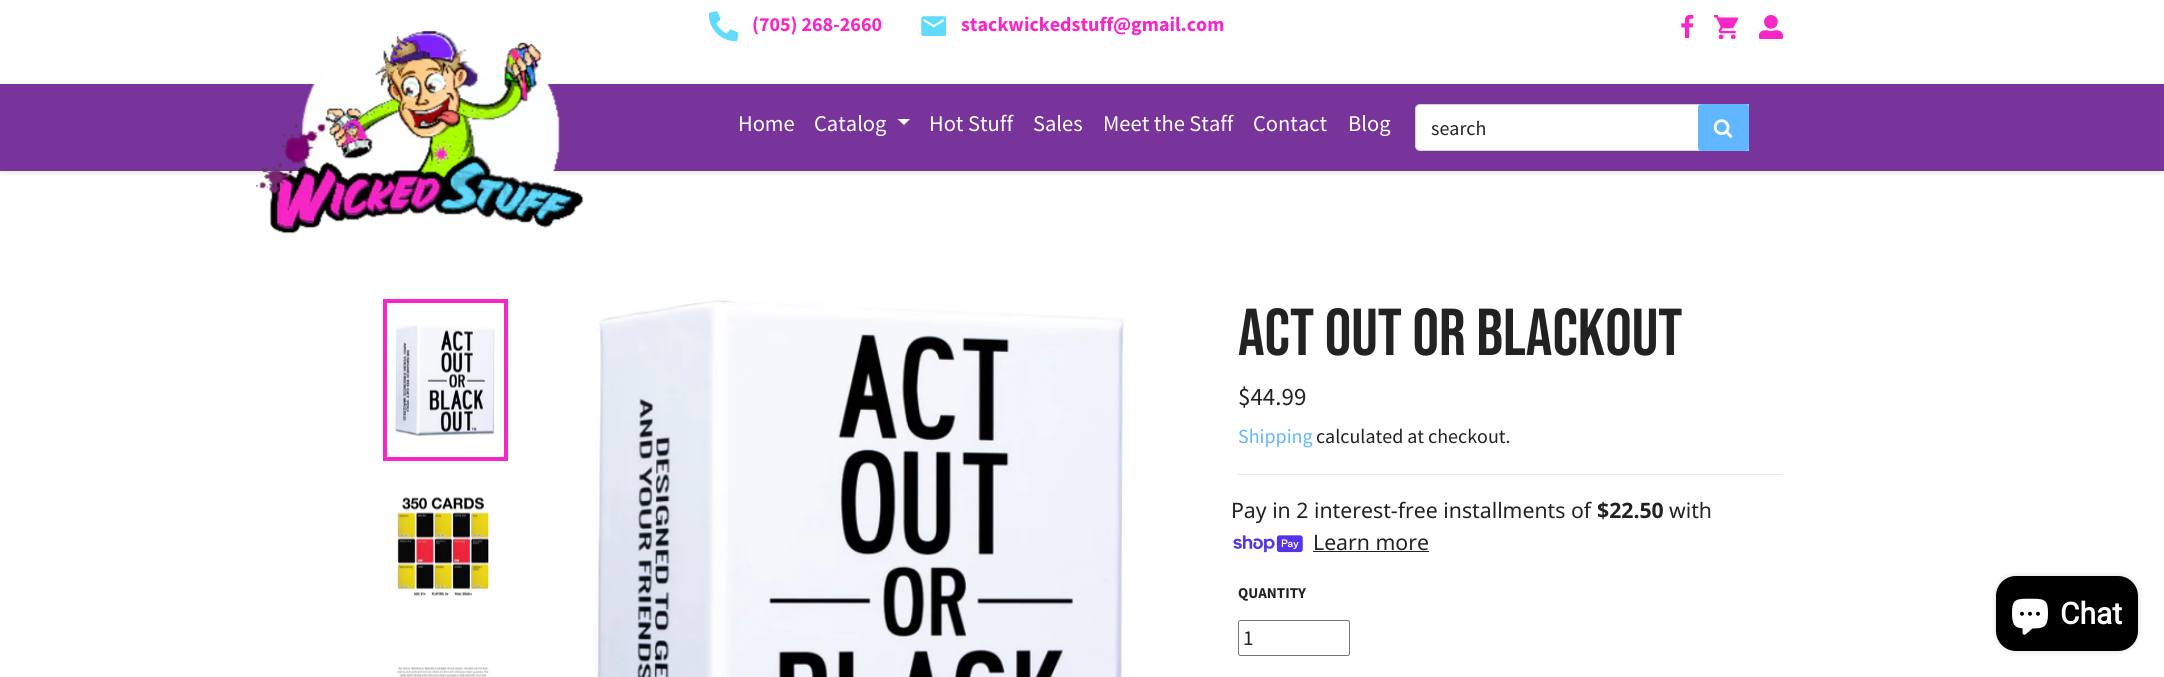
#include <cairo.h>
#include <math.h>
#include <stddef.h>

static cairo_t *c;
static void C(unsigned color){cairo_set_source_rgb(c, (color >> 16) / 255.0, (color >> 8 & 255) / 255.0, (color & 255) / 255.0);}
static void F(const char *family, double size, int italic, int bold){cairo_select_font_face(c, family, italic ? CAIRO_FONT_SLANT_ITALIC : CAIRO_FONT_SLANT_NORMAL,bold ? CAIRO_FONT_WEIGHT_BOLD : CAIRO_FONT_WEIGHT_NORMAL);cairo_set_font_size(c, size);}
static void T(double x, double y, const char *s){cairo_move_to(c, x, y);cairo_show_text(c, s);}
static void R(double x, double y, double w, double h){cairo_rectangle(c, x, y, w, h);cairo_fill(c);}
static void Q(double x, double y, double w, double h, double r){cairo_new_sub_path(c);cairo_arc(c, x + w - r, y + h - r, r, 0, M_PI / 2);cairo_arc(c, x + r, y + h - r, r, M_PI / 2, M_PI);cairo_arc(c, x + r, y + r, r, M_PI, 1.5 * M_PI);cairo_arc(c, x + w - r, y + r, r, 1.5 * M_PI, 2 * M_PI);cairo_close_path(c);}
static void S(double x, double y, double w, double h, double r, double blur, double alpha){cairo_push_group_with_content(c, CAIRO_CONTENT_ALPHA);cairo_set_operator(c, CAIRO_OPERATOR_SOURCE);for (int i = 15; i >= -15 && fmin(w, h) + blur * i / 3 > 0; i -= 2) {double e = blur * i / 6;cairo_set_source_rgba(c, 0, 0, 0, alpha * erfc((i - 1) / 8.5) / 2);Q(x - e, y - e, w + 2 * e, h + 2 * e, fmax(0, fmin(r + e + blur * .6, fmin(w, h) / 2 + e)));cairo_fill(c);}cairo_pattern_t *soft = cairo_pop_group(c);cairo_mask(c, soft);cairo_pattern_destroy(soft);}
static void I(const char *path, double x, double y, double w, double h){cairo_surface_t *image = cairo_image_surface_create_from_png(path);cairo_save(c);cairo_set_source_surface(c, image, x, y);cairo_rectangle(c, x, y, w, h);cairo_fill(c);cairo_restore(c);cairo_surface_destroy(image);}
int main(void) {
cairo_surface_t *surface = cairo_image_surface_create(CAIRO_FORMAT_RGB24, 2164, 677);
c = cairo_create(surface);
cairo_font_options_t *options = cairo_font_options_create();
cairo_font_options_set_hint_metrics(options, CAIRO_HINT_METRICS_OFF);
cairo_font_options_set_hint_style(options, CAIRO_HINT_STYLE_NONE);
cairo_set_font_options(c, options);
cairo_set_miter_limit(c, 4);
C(0xffffff);
cairo_paint(c);
I("1.png",709,11,29,30);
F("Source Sans Pro",20,0,1);
C(0xf726c6);
T(752,31,"(705) 268-2660");
I("2.png",921,16,25,20);
T(961,31,"stackwickedstuff@gmail.com");
I("3.png",1681,14,13,25);
I("4.png",1714,15,25,24);
I("5.png",1759,15,24,24);
C(0x000000);
S(0,86,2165,88,0,2.5,.07);
C(0x79349b);
R(0,84,2164,87);
I("6.png",256,31,328,203);
F("Source Sans Pro",22.5,0,0);
C(0xffffff);
T(738,131,"Home");
T(814,131,"Catalog");
cairo_new_path(c);
cairo_move_to(c,897.5,119);
cairo_line_to(c,910,119);
cairo_line_to(c,904,125);
cairo_close_path(c);
cairo_fill(c);
T(929,131,"Hot Stuff");
T(1033,131,"Sales");
T(1103,131,"Meet the Staff");
T(1253,131,"Contact");
T(1348,131,"Blog");
cairo_new_path(c);
cairo_move_to(c,1420,104.5);
cairo_line_to(c,1698.5,104.5);
cairo_line_to(c,1698.5,150.5);
cairo_line_to(c,1420,150.5);
cairo_curve_to(c,1417.5,150.5,1415.5,148.5,1415.5,146);
cairo_line_to(c,1415.5,109);
cairo_curve_to(c,1415.5,106.5,1417.5,104.5,1420,104.5);
cairo_close_path(c);
cairo_fill_preserve(c);
C(0xced4da);
cairo_set_line_width(c,1);
cairo_stroke(c);
F("Source Sans Pro",20,0,0);
C(0x212529);
T(1431,135,"search");
C(0x61daff);
R(1699,104,50,47);
C(0x61b7ff);
Q(1698,104,51,47,5);
cairo_fill(c);
I("7.png",1713,119,20,19);
I("8.png",395,324,100,113);
cairo_rectangle(c,385,301,121,158);
C(0xf726c6);
cairo_set_line_width(c,4);
cairo_stroke(c);
I("9.png",395,496,95,100);
I("10.png",397,667,92,10);
I("11.png",595,300,530,377);
F("Bebas Neue",66.25,0,0);
C(0x222222);
T(1238,355,"ACT OUT OR BLACKOUT");
F("Source Sans Pro",25,0,0);
T(1238,405,"$44.99");
F("Source Sans Pro",20,0,0);
C(0x61b7ff);
T(1238,443,"Shipping");
C(0x222222);
T(1316,443,"calculated at checkout.");
C(0xe9e9e9);
R(1238,474,545,1);
F("Noto Sans",21.25,0,0);
C(0x222222);
T(1231,518,"Pay in 2 interest-free installments of");
F("Noto Sans",21.25,0,1);
T(1597,518,"$22.50");
F("Noto Sans",21.25,0,0);
T(1669,518,"with");
I("12.png",1233,535,70,18);
T(1313,550,"Learn more");
R(1313,551,116,1);
F("Source Sans Pro",15,0,1);
T(1238,598,"QUANTITY");
Q(1238.5,620.5,111,35,2);
C(0x767676);
cairo_set_line_width(c,1);
cairo_stroke(c);
F("Source Sans Pro",21.25,0,0);
C(0x222222);
T(1243,645,"1");
C(0x000000);
S(1996,576,142,75,20,3,.15);
C(0x000000);
Q(1996,576,142,75,20);
cairo_fill(c);
I("13.png",2012,598,36,37);
F("Roboto",30,0,1);
C(0xffffff);
T(2060,624,"Chat");
cairo_surface_write_to_png(surface, "o.png");
cairo_font_options_destroy(options);
cairo_destroy(c);
cairo_surface_destroy(surface);
return 0;
}
